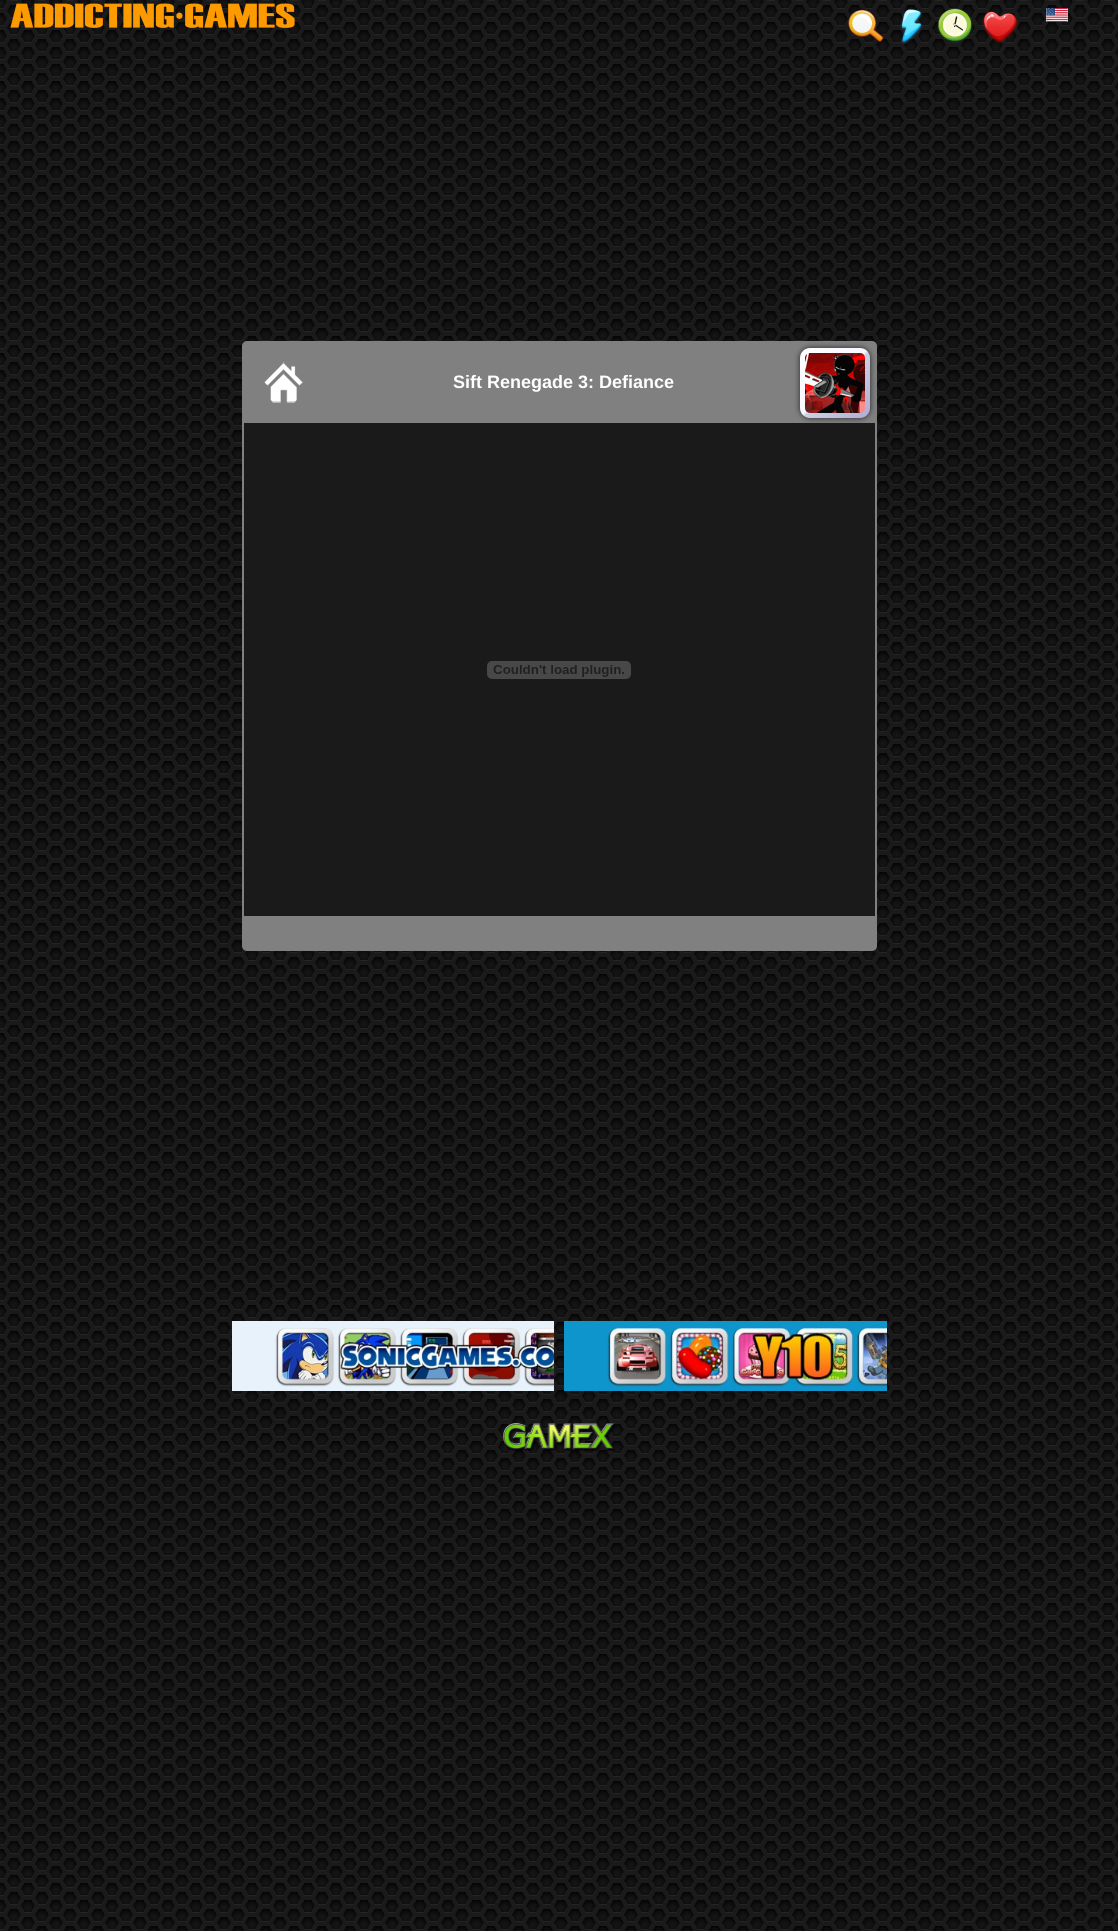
#include <cairo.h>
#include <math.h>
#include <stddef.h>

static cairo_t *c;
static void C(unsigned color){cairo_set_source_rgb(c, (color >> 16) / 255.0, (color >> 8 & 255) / 255.0, (color & 255) / 255.0);}
static void F(const char *family, double size, int italic, int bold){cairo_select_font_face(c, family, italic ? CAIRO_FONT_SLANT_ITALIC : CAIRO_FONT_SLANT_NORMAL,bold ? CAIRO_FONT_WEIGHT_BOLD : CAIRO_FONT_WEIGHT_NORMAL);cairo_set_font_size(c, size);}
static void T(double x, double y, const char *s){cairo_move_to(c, x, y);cairo_show_text(c, s);}
static void R(double x, double y, double w, double h){cairo_rectangle(c, x, y, w, h);cairo_fill(c);}
static void Q(double x, double y, double w, double h, double r){cairo_new_sub_path(c);cairo_arc(c, x + w - r, y + h - r, r, 0, M_PI / 2);cairo_arc(c, x + r, y + h - r, r, M_PI / 2, M_PI);cairo_arc(c, x + r, y + r, r, M_PI, 1.5 * M_PI);cairo_arc(c, x + w - r, y + r, r, 1.5 * M_PI, 2 * M_PI);cairo_close_path(c);}
static void S(double x, double y, double w, double h, double r, double blur, double alpha){cairo_push_group_with_content(c, CAIRO_CONTENT_ALPHA);cairo_set_operator(c, CAIRO_OPERATOR_SOURCE);for (int i = 15; i >= -15 && fmin(w, h) + blur * i / 3 > 0; i -= 2) {double e = blur * i / 6;cairo_set_source_rgba(c, 0, 0, 0, alpha * erfc((i - 1) / 8.5) / 2);Q(x - e, y - e, w + 2 * e, h + 2 * e, fmax(0, fmin(r + e + blur * .6, fmin(w, h) / 2 + e)));cairo_fill(c);}cairo_pattern_t *soft = cairo_pop_group(c);cairo_mask(c, soft);cairo_pattern_destroy(soft);}
static void I(const char *path, double x, double y, double w, double h){cairo_surface_t *image = cairo_image_surface_create_from_png(path);cairo_save(c);cairo_set_source_surface(c, image, x, y);cairo_rectangle(c, x, y, w, h);cairo_fill(c);cairo_restore(c);cairo_surface_destroy(image);}
int main(void) {
cairo_surface_t *surface = cairo_image_surface_create(CAIRO_FORMAT_RGB24, 1118, 1931);
c = cairo_create(surface);
cairo_font_options_t *options = cairo_font_options_create();
cairo_font_options_set_hint_metrics(options, CAIRO_HINT_METRICS_OFF);
cairo_font_options_set_hint_style(options, CAIRO_HINT_STYLE_NONE);
cairo_set_font_options(c, options);
cairo_set_miter_limit(c, 4);
cairo_pattern_t *gradient;
C(0xffffff);
cairo_paint(c);
I("1.png",0,0,1118,1931);
I("2.png",10,3,285,25);
I("3.png",848,9,36,33);
I("4.png",900,5,23,39);
I("5.png",937,8,36,35);
I("6.png",982,11,37,33);
I("7.png",1046,8,22,14);
C(0x808080);
Q(243,342,633,608,4);
cairo_fill_preserve(c);
cairo_stroke(c);
I("8.png",264,362,40,41);
F("Liberation Sans",18,0,1);
C(0xffffff);
T(453,388,"Sift Renegade 3: Defiance");
C(0x000000);
S(799,347,72,72,11,2.5,.53);
gradient = cairo_pattern_create_linear(800,348,870,418);
cairo_pattern_add_color_stop_rgba(gradient,0,1,1,1,1);
cairo_pattern_add_color_stop_rgba(gradient,.49,0.969,0.973,1,1);
cairo_pattern_add_color_stop_rgba(gradient,.52,0.8,0.82,0.886,1);
cairo_pattern_add_color_stop_rgba(gradient,1,0.686,0.671,0.839,1);
cairo_set_source(c,gradient);
cairo_pattern_destroy(gradient);
Q(800,348,70,70,10);
cairo_fill(c);
I("9.png",805,353,60,60);
C(0x1a1a1a);
R(244,423,631,493);
I("10.png",487,661,144,18);
I("11.png",232,1321,322,70);
I("12.png",564,1321,323,70);
I("13.png",503,1423,112,28);
cairo_surface_write_to_png(surface, "o.png");
cairo_font_options_destroy(options);
cairo_destroy(c);
cairo_surface_destroy(surface);
return 0;
}
